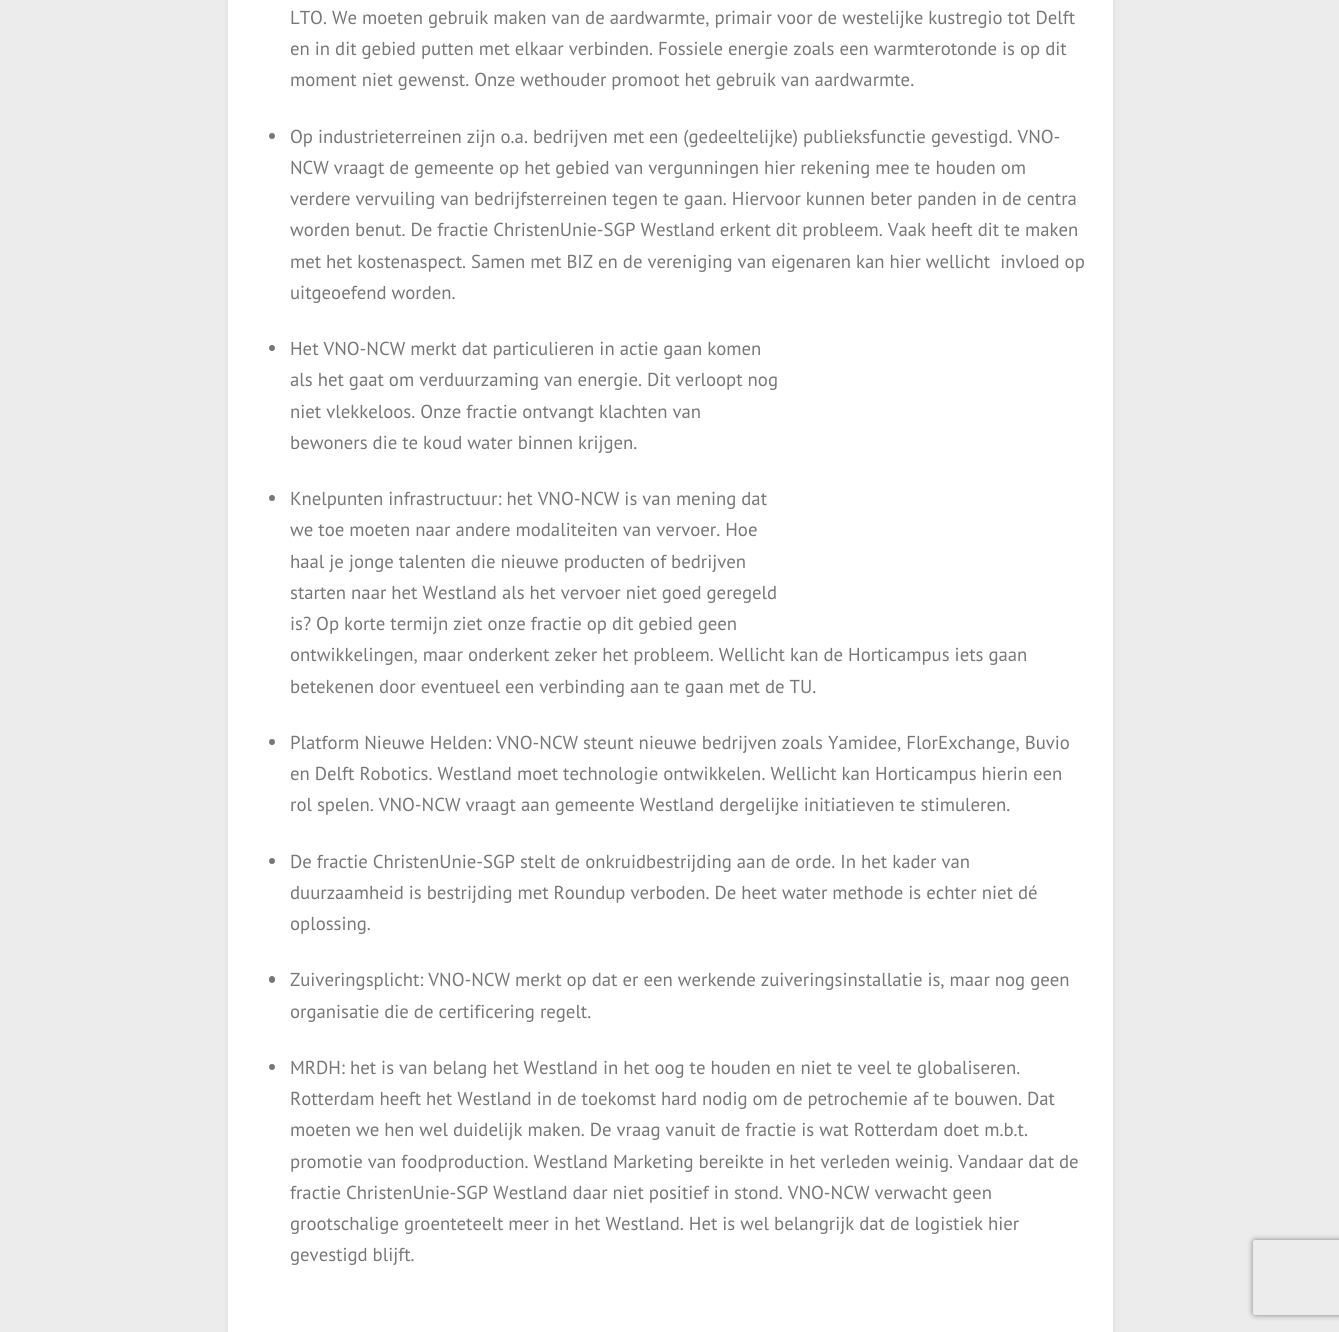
#include <cairo.h>
#include <math.h>
#include <stddef.h>

static cairo_t *c;
static void C(unsigned color){cairo_set_source_rgb(c, (color >> 16) / 255.0, (color >> 8 & 255) / 255.0, (color & 255) / 255.0);}
static void F(const char *family, double size, int italic, int bold){cairo_select_font_face(c, family, italic ? CAIRO_FONT_SLANT_ITALIC : CAIRO_FONT_SLANT_NORMAL,bold ? CAIRO_FONT_WEIGHT_BOLD : CAIRO_FONT_WEIGHT_NORMAL);cairo_set_font_size(c, size);}
static void T(double x, double y, const char *s){cairo_move_to(c, x, y);cairo_show_text(c, s);}
static void R(double x, double y, double w, double h){cairo_rectangle(c, x, y, w, h);cairo_fill(c);}
static void Q(double x, double y, double w, double h, double r){cairo_new_sub_path(c);cairo_arc(c, x + w - r, y + h - r, r, 0, M_PI / 2);cairo_arc(c, x + r, y + h - r, r, M_PI / 2, M_PI);cairo_arc(c, x + r, y + r, r, M_PI, 1.5 * M_PI);cairo_arc(c, x + w - r, y + r, r, 1.5 * M_PI, 2 * M_PI);cairo_close_path(c);}
static void S(double x, double y, double w, double h, double r, double blur, double alpha){cairo_push_group_with_content(c, CAIRO_CONTENT_ALPHA);cairo_set_operator(c, CAIRO_OPERATOR_SOURCE);for (int i = 15; i >= -15 && fmin(w, h) + blur * i / 3 > 0; i -= 2) {double e = blur * i / 6;cairo_set_source_rgba(c, 0, 0, 0, alpha * erfc((i - 1) / 8.5) / 2);Q(x - e, y - e, w + 2 * e, h + 2 * e, fmax(0, fmin(r + e + blur * .6, fmin(w, h) / 2 + e)));cairo_fill(c);}cairo_pattern_t *soft = cairo_pop_group(c);cairo_mask(c, soft);cairo_pattern_destroy(soft);}
int main(void) {
cairo_surface_t *surface = cairo_image_surface_create(CAIRO_FORMAT_RGB24, 1339, 1332);
c = cairo_create(surface);
cairo_font_options_t *options = cairo_font_options_create();
cairo_font_options_set_hint_metrics(options, CAIRO_HINT_METRICS_OFF);
cairo_font_options_set_hint_style(options, CAIRO_HINT_STYLE_NONE);
cairo_set_font_options(c, options);
cairo_set_miter_limit(c, 4);
C(0xececec);
cairo_paint(c);
C(0xdddddd);
S(228,-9,885,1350,0,3,1);
C(0xffffff);
R(228,0,885,1332);
F("PT Sans",18.75,0,0);
C(0x777777);
T(290,24,"LTO. We moeten gebruik maken van de aardwarmte, primair voor de westelijke kustregio tot Delft");
T(290,55,"en in dit gebied putten met elkaar verbinden. Fossiele energie zoals een warmterotonde is op dit");
T(290,86,"moment niet gewenst. Onze wethouder promoot het gebruik van aardwarmte.");
cairo_new_path(c);
cairo_arc(c,272,136,3,0,2 * M_PI);
cairo_fill(c);
T(290,143,"Op industrieterreinen zijn o.a. bedrijven met een (gedeeltelijke) publieksfunctie gevestigd. VNO-");
T(290,174,"NCW vraagt de gemeente op het gebied van vergunningen hier rekening mee te houden om");
T(290,205,"verdere vervuiling van bedrijfsterreinen tegen te gaan. Hiervoor kunnen beter panden in de centra");
T(290,236,"worden benut. De fractie ChristenUnie-SGP Westland erkent dit probleem. Vaak heeft dit te maken");
T(290,268,"met het kostenaspect. Samen met BIZ en de vereniging van eigenaren kan hier wellicht  invloed op");
T(290,299,"uitgeoefend worden.");
cairo_new_path(c);
cairo_arc(c,272,348,3,0,2 * M_PI);
cairo_fill(c);
T(290,355,"Het VNO-NCW merkt dat particulieren in actie gaan komen");
T(290,386,"als het gaat om verduurzaming van energie. Dit verloopt nog");
T(290,418,"niet vlekkeloos. Onze fractie ontvangt klachten van");
T(290,449,"bewoners die te koud water binnen krijgen.");
cairo_new_path(c);
cairo_arc(c,272,498,3,0,2 * M_PI);
cairo_fill(c);
T(290,505,"Knelpunten infrastructuur: het VNO-NCW is van mening dat");
T(290,536,"we toe moeten naar andere modaliteiten van vervoer. Hoe");
T(290,568,"haal je jonge talenten die nieuwe producten of bedrijven");
T(290,599,"starten naar het Westland als het vervoer niet goed geregeld");
T(290,630,"is? Op korte termijn ziet onze fractie op dit gebied geen");
T(290,661,"ontwikkelingen, maar onderkent zeker het probleem. Wellicht kan de Horticampus iets gaan");
T(290,693,"betekenen door eventueel een verbinding aan te gaan met de TU.");
cairo_new_path(c);
cairo_arc(c,272,742,3,0,2 * M_PI);
cairo_fill(c);
T(290,749,"Platform Nieuwe Helden: VNO-NCW steunt nieuwe bedrijven zoals Yamidee, FlorExchange, Buvio");
T(290,780,"en Delft Robotics. Westland moet technologie ontwikkelen. Wellicht kan Horticampus hierin een");
T(290,811,"rol spelen. VNO-NCW vraagt aan gemeente Westland dergelijke initiatieven te stimuleren.");
cairo_new_path(c);
cairo_arc(c,272,861,3,0,2 * M_PI);
cairo_fill(c);
T(290,868,"De fractie ChristenUnie-SGP stelt de onkruidbestrijding aan de orde. In het kader van");
T(290,899,"duurzaamheid is bestrijding met Roundup verboden. De heet water methode is echter niet dé");
T(290,930,"oplossing.");
Q(269,976,6,7,3);
cairo_fill(c);
T(290,986,"Zuiveringsplicht: VNO-NCW merkt op dat er een werkende zuiveringsinstallatie is, maar nog geen");
T(290,1018,"organisatie die de certificering regelt.");
cairo_new_path(c);
cairo_arc(c,272,1067,3,0,2 * M_PI);
cairo_fill(c);
T(290,1074,"MRDH: het is van belang het Westland in het oog te houden en niet te veel te globaliseren.");
T(290,1105,"Rotterdam heeft het Westland in de toekomst hard nodig om de petrochemie af te bouwen. Dat");
T(290,1136,"moeten we hen wel duidelijk maken. De vraag vanuit de fractie is wat Rotterdam doet m.b.t.");
T(290,1168,"promotie van foodproduction. Westland Marketing bereikte in het verleden weinig. Vandaar dat de");
T(290,1199,"fractie ChristenUnie-SGP Westland daar niet positief in stond. VNO-NCW verwacht geen");
T(290,1230,"grootschalige groenteteelt meer in het Westland. Het is wel belangrijk dat de logistiek hier");
T(290,1261,"gevestigd blijft.");
cairo_save(c);
cairo_set_fill_rule(c,CAIRO_FILL_RULE_EVEN_ODD);
cairo_new_path(c);
cairo_move_to(c,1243,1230);
cairo_line_to(c,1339,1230);
cairo_line_to(c,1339,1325);
cairo_line_to(c,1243,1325);
cairo_close_path(c);
cairo_move_to(c,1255.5,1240);
cairo_line_to(c,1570.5,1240);
cairo_curve_to(c,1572,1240,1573,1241,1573,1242.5);
cairo_line_to(c,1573,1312.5);
cairo_curve_to(c,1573,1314,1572,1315,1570.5,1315);
cairo_line_to(c,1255.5,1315);
cairo_curve_to(c,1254,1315,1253,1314,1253,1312.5);
cairo_line_to(c,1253,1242.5);
cairo_curve_to(c,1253,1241,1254,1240,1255.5,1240);
cairo_close_path(c);
cairo_clip(c);
C(0x808080);
S(1253,1240,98,75,2.5,3,1);
cairo_restore(c);
cairo_surface_write_to_png(surface, "o.png");
cairo_font_options_destroy(options);
cairo_destroy(c);
cairo_surface_destroy(surface);
return 0;
}
